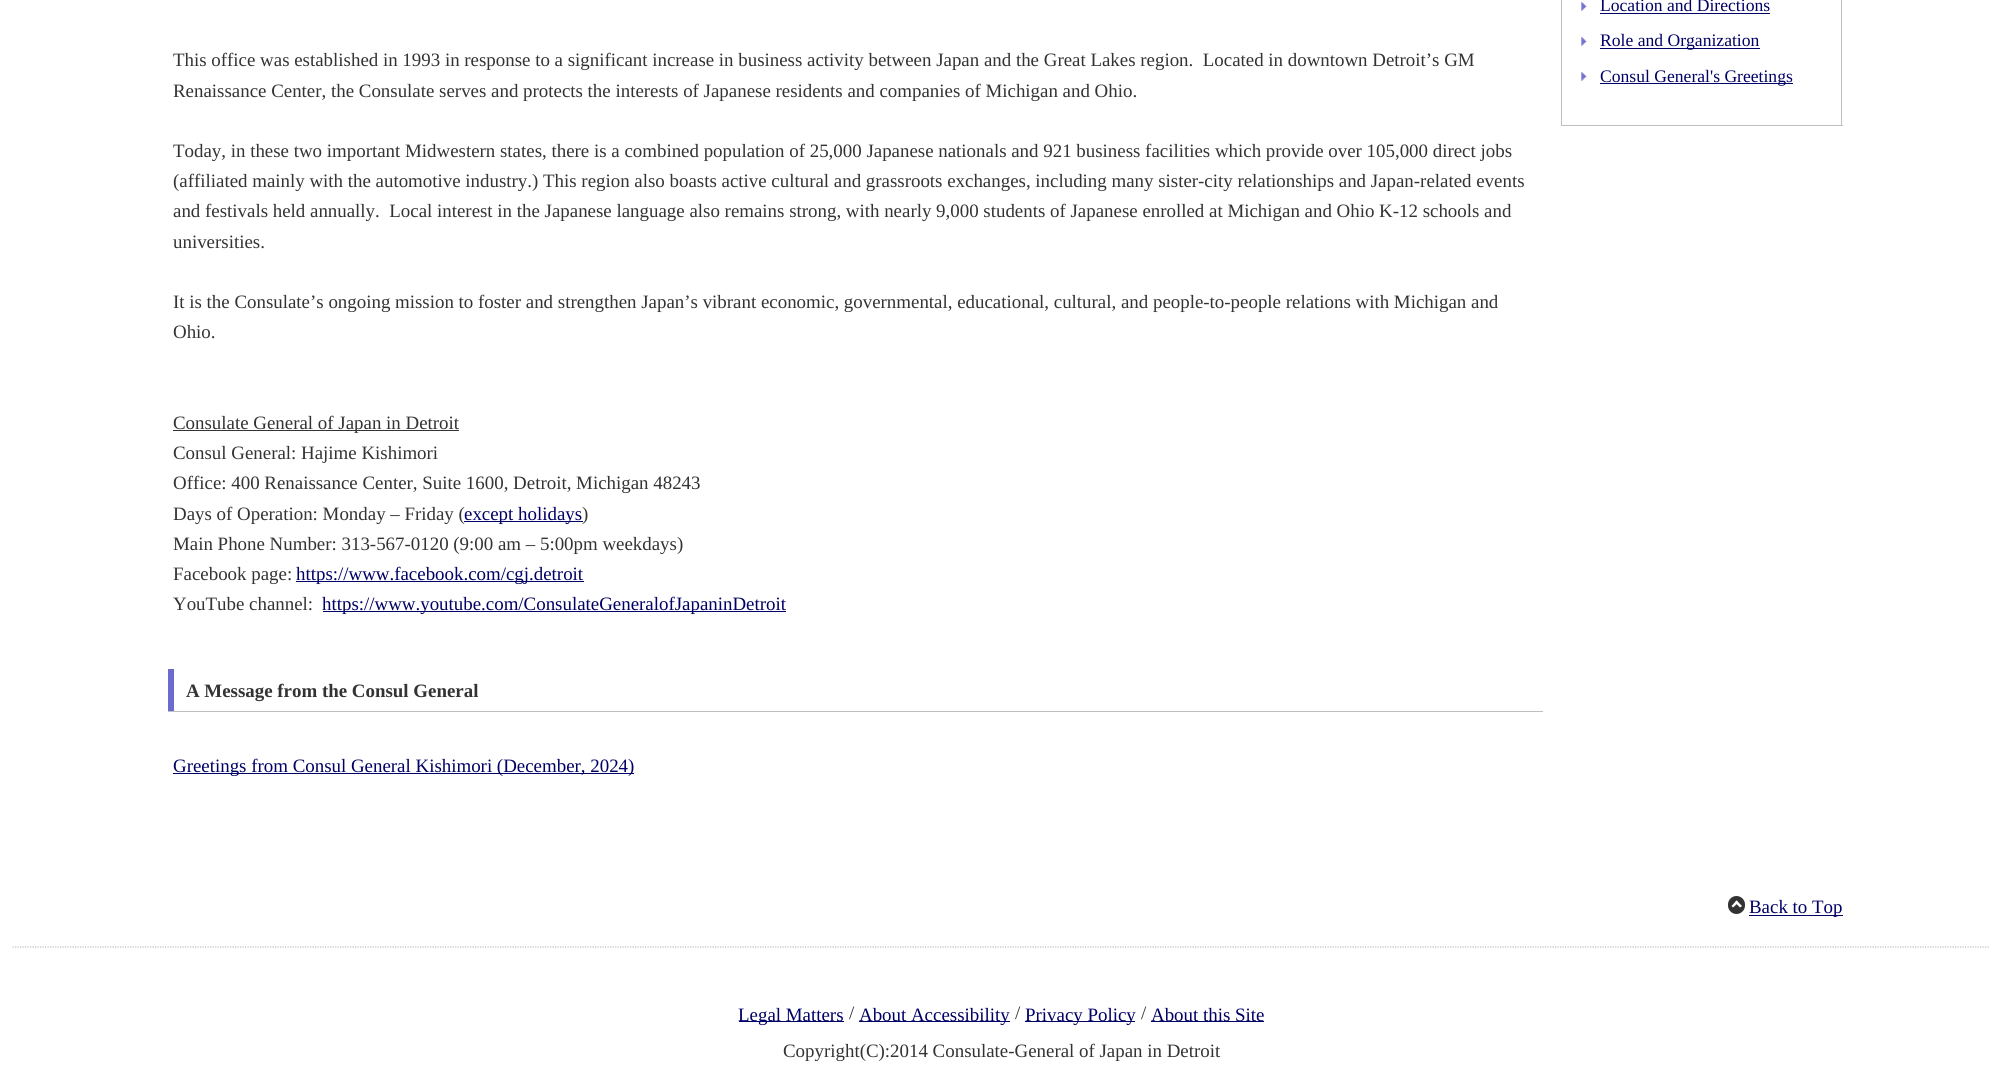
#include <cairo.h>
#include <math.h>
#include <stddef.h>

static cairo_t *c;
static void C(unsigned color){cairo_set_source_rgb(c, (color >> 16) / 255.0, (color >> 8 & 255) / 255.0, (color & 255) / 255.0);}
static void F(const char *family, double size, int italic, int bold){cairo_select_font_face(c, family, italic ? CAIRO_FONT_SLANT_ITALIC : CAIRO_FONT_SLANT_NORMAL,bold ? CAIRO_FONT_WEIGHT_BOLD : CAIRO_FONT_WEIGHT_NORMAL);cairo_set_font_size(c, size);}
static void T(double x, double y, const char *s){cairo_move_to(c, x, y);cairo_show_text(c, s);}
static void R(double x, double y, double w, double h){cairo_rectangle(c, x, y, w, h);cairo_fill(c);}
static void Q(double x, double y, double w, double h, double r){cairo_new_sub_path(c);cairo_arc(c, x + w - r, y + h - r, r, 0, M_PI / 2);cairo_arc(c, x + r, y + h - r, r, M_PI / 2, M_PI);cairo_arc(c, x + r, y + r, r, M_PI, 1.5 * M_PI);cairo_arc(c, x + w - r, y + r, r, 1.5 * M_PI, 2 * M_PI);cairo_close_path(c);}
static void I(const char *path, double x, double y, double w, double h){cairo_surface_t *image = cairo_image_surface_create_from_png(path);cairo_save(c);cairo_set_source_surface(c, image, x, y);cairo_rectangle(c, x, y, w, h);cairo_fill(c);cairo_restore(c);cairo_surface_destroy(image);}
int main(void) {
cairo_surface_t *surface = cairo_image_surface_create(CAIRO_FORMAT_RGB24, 2002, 1085);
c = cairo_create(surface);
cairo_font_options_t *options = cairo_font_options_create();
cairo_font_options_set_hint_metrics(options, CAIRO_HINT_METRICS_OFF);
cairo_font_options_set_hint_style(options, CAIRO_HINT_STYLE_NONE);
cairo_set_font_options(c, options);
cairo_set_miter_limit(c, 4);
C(0xffffff);
cairo_paint(c);
C(0xbfbfbf);
R(1841,0,1,126);
R(1561,125,282,1);
R(1561,0,1,126);
I("1.png",1581,1,6,10);
F("Liberation Serif",17.6,0,0);
C(0x000066);
T(1600,11,"Location and Directions");
R(1600,13,170,1);
I("1.png",1581,36,6,10);
R(1600,48,160,1);
T(1600,46,"Role and Organization");
I("1.png",1581,71,6,10);
R(1600,83,193,1);
T(1600,82,"Consul General's Greetings");
F("Liberation Serif",18.9,0,0);
C(0x333333);
T(173,66,"This office was established in 1993 in response to a significant increase in business activity between Japan and the Great Lakes region.  Located in downtown Detroit’s GM");
T(173,97,"Renaissance Center, the Consulate serves and protects the interests of Japanese residents and companies of Michigan and Ohio.");
T(173,157,"Today, in these two important Midwestern states, there is a combined population of 25,000 Japanese nationals and 921 business facilities which provide over 105,000 direct jobs");
T(173,187,"(affiliated mainly with the automotive industry.) This region also boasts active cultural and grassroots exchanges, including many sister-city relationships and Japan-related events");
T(173,217,"and festivals held annually.  Local interest in the Japanese language also remains strong, with nearly 9,000 students of Japanese enrolled at Michigan and Ohio K-12 schools and");
T(173,248,"universities.");
T(173,308,"It is the Consulate’s ongoing mission to foster and strengthen Japan’s vibrant economic, governmental, educational, cultural, and people-to-people relations with Michigan and");
T(173,338,"Ohio.");
R(173,430,286,1);
T(173,429,"Consulate General of Japan in Detroit");
T(173,459,"Consul General: Hajime Kishimori");
T(173,489,"Office: 400 Renaissance Center, Suite 1600, Detroit, Michigan 48243");
T(173,520,"Days of Operation: Monday – Friday (");
C(0x000066);
R(464,521,119,1);
T(464,520,"except holidays");
C(0x333333);
T(582,520,")");
T(173,550,"Main Phone Number: 313-567-0120 (9:00 am – 5:00pm weekdays)");
T(173,580,"Facebook page:");
C(0x000066);
R(296,581,288,1);
T(296,580,"https://www.facebook.com/cgj.detroit");
C(0x333333);
T(173,610,"YouTube channel:");
C(0x000066);
R(323,611,463,1);
T(322,610,"https://www.youtube.com/ConsulateGeneralofJapaninDetroit");
C(0xbfbfbf);
R(168,711,1375,1);
C(0x6b6bcf);
R(168,669,6,42);
F("Liberation Serif",18.9,0,1);
C(0x333333);
T(186,697,"A Message from the Consul General");
C(0x000066);
R(173,773,461,1);
F("Liberation Serif",18.9,0,0);
T(173,772,"Greetings from Consul General Kishimori (December, 2024)");
C(0x333333);
Q(1728,896,17,18,8.5);
cairo_fill(c);
C(0x000066);
R(1749,915,94,1);
T(1749,913,"Back to Top");
C(0xffffff);
cairo_new_path(c);
cairo_move_to(c,1733,907.5);
cairo_line_to(c,1731.5,906);
cairo_line_to(c,1736.5,900.5);
cairo_line_to(c,1738.5,902.5);
cairo_close_path(c);
cairo_fill(c);
cairo_new_path(c);
cairo_move_to(c,1740,907.5);
cairo_line_to(c,1735,902.5);
cairo_line_to(c,1736.5,900.5);
cairo_line_to(c,1742,906);
cairo_close_path(c);
cairo_fill(c);
cairo_new_path(c);
cairo_move_to(c,12.5,947);
cairo_line_to(c,1990,947);
C(0xbfbfbf);
cairo_set_line_width(c,1.2);
cairo_set_dash(c,(double[]){1.25,1.25},2,0);
cairo_stroke(c);
C(0x000066);
R(739,1021,105,1);
T(738,1021,"Legal Matters");
C(0x333333);
T(849,1019,"/");
C(0x000066);
R(859,1021,151,1);
T(859,1021,"About Accessibility");
C(0x333333);
T(1015,1019,"/");
C(0x000066);
R(1025,1021,110,1);
T(1025,1021,"Privacy Policy");
C(0x333333);
T(1141,1019,"/");
C(0x000066);
R(1151,1021,113,1);
T(1151,1021,"About this Site");
C(0x333333);
T(783,1057,"Copyright(C):2014 Consulate-General of Japan in Detroit");
cairo_surface_write_to_png(surface, "o.png");
cairo_font_options_destroy(options);
cairo_destroy(c);
cairo_surface_destroy(surface);
return 0;
}
